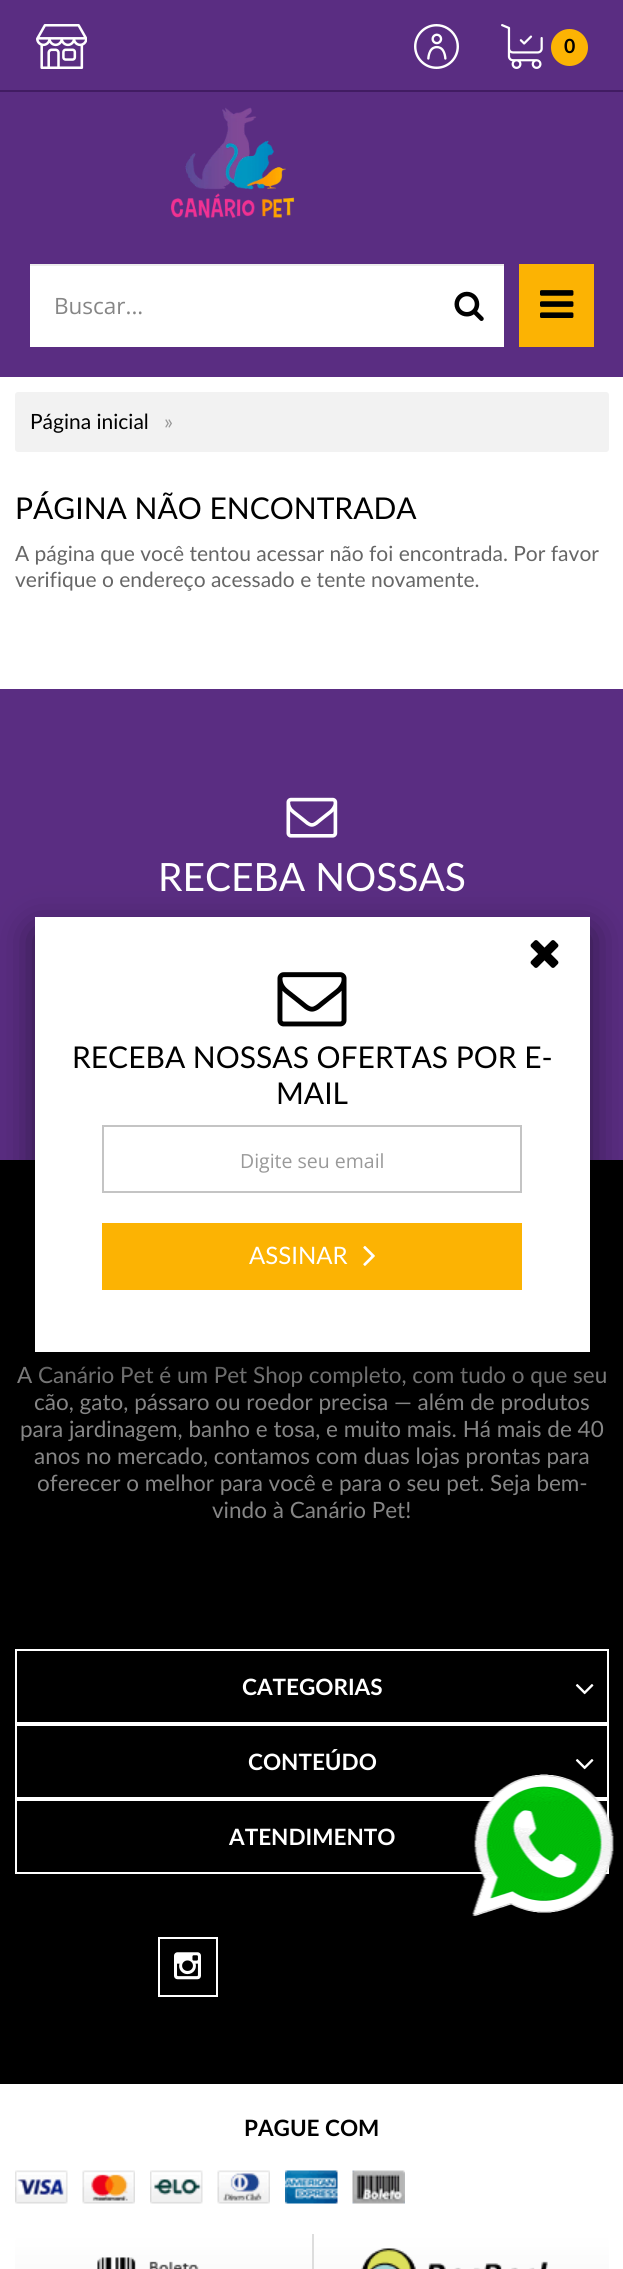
#include <cairo.h>
#include <math.h>
#include <stddef.h>

static cairo_t *c;
static void C(unsigned color){cairo_set_source_rgb(c, (color >> 16) / 255.0, (color >> 8 & 255) / 255.0, (color & 255) / 255.0);}
static void F(const char *family, double size, int italic, int bold){cairo_select_font_face(c, family, italic ? CAIRO_FONT_SLANT_ITALIC : CAIRO_FONT_SLANT_NORMAL,bold ? CAIRO_FONT_WEIGHT_BOLD : CAIRO_FONT_WEIGHT_NORMAL);cairo_set_font_size(c, size);}
static void T(double x, double y, const char *s){cairo_move_to(c, x, y);cairo_show_text(c, s);}
static void R(double x, double y, double w, double h){cairo_rectangle(c, x, y, w, h);cairo_fill(c);}
static void Q(double x, double y, double w, double h, double r){cairo_new_sub_path(c);cairo_arc(c, x + w - r, y + h - r, r, 0, M_PI / 2);cairo_arc(c, x + r, y + h - r, r, M_PI / 2, M_PI);cairo_arc(c, x + r, y + r, r, M_PI, 1.5 * M_PI);cairo_arc(c, x + w - r, y + r, r, 1.5 * M_PI, 2 * M_PI);cairo_close_path(c);}
static void S(double x, double y, double w, double h, double r, double blur, double alpha){cairo_push_group_with_content(c, CAIRO_CONTENT_ALPHA);cairo_set_operator(c, CAIRO_OPERATOR_SOURCE);for (int i = 15; i >= -15 && fmin(w, h) + blur * i / 3 > 0; i -= 2) {double e = blur * i / 6;cairo_set_source_rgba(c, 0, 0, 0, alpha * erfc((i - 1) / 8.5) / 2);Q(x - e, y - e, w + 2 * e, h + 2 * e, fmax(0, fmin(r + e + blur * .6, fmin(w, h) / 2 + e)));cairo_fill(c);}cairo_pattern_t *soft = cairo_pop_group(c);cairo_mask(c, soft);cairo_pattern_destroy(soft);}
static void I(const char *path, double x, double y, double w, double h){cairo_surface_t *image = cairo_image_surface_create_from_png(path);cairo_save(c);cairo_set_source_surface(c, image, x, y);cairo_rectangle(c, x, y, w, h);cairo_fill(c);cairo_restore(c);cairo_surface_destroy(image);}
int main(void) {
cairo_surface_t *surface = cairo_image_surface_create(CAIRO_FORMAT_RGB24, 623, 2269);
c = cairo_create(surface);
cairo_font_options_t *options = cairo_font_options_create();
cairo_font_options_set_hint_metrics(options, CAIRO_HINT_METRICS_OFF);
cairo_font_options_set_hint_style(options, CAIRO_HINT_STYLE_NONE);
cairo_set_font_options(c, options);
cairo_set_miter_limit(c, 4);
cairo_pattern_t *gradient;
C(0xffffff);
cairo_paint(c);
C(0x5a2d82);
R(0,0,623,377);
C(0x411c62);
R(0,90,623,2);
I("1.png",36,24,51,45);
I("2.png",414,24,45,45);
I("3.png",501,24,42,45);
C(0xfcb303);
cairo_arc(c,569.5,47.5,18.5,0,2 * M_PI);
cairo_fill(c);
F("Lato",19.5,0,1);
C(0x000000);
T(564,53,"0");
I("4.png",170,107,125,112);
C(0xffffff);
R(30,266,474,81);
C(0xececec);
R(30,264,474,2);
F("Open Sans",22.5,0,0);
C(0x868686);
T(54,314,"Buscar...");
I("5.png",454,291,30,30);
C(0xfcb303);
R(519,264,75,83);
I("6.png",540,290,34,28);
C(0xf2f2f2);
Q(15,392,594,60,3);
cairo_fill(c);
F("Lato",21,0,0);
C(0x000000);
T(30,429,"Página inicial");
C(0x999999);
T(164,429,"»");
F("Lato",30,0,0);
C(0x000000);
T(15,519,"PÁGINA NÃO ENCONTRADA");
F("Lato",21,0,0);
C(0x666666);
T(15,561,"A página que você tentou acessar não foi encontrada. Por favor");
T(15,587,"verifique o endereço acessado e tente novamente.");
C(0x5a2d82);
R(0,689,623,471);
I("7.png",286,797,52,41);
F("Lato",39,0,0);
C(0xffffff);
T(158,891,"RECEBA NOSSAS");
C(0x000000);
R(0,1160,623,924);
F("Lato",22.5,0,0);
C(0x868686);
T(17,1383,"A Canário Pet é um Pet Shop completo, com tudo o que seu");
T(34,1410,"cão, gato, pássaro ou roedor precisa — além de produtos");
T(20,1437,"para jardinagem, banho e tosa, e muito mais. Há mais de 40");
T(34,1464,"anos no mercado, contamos com duas lojas prontas para");
T(37,1491,"oferecer o melhor para você e para o seu pet. Seja bem-");
T(212,1518,"vindo à Canário Pet!");
cairo_rectangle(c,16,1650,592,73);
C(0xffffff);
cairo_stroke(c);
F("Lato",22.5,0,1);
T(242,1695,"CATEGORIAS");
I("8.png",575,1684,19,11);
cairo_rectangle(c,16,1725,592,73);
cairo_stroke(c);
T(248,1770,"CONTEÚDO");
I("8.png",575,1759,19,11);
cairo_rectangle(c,16,1800,592,73);
cairo_stroke(c);
T(229,1845,"ATENDIMENTO");
cairo_rectangle(c,159,1938,58,58);
cairo_stroke(c);
I("9.png",174,1952,27,28);
C(0x000000);
T(244,2136,"PAGUE COM");
I("10.png",15,2170,53,34);
I("11.png",82,2170,53,34);
I("12.png",150,2170,53,34);
I("13.png",217,2170,53,34);
I("14.png",285,2170,53,34);
I("15.png",352,2170,53,34);
gradient = cairo_pattern_create_linear(312,2234,312,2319);
cairo_pattern_add_color_stop_rgba(gradient,0,1,1,1,1);
cairo_pattern_add_color_stop_rgba(gradient,1,0.961,0.961,0.961,1);
cairo_set_source(c,gradient);
cairo_pattern_destroy(gradient);
Q(15,2234,594,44,9);
cairo_fill(c);
I("16.png",97,2257,102,12);
C(0xdddddd);
R(312,2234,2,35);
I("17.png",361,2248,187,21);
C(0x000000);
S(35,932,555,435,0,19,.5);
C(0xffffff);
R(35,917,555,435);
I("18.png",530,940,29,28);
I("19.png",277,972,70,55);
F("Lato",30,0,0);
C(0x000000);
T(72,1068,"RECEBA NOSSAS OFERTAS POR E-");
T(276,1104,"MAIL");
cairo_rectangle(c,103,1126,418,66);
C(0xc4c4c4);
cairo_stroke(c);
F("Open Sans",19.5,0,0);
C(0x999999);
T(240,1168,"Digite seu email");
C(0xfcb303);
R(102,1223,420,67);
F("Lato",24,0,0);
C(0xffffff);
T(249,1264,"ASSINAR");
I("20.png",363,1246,12,20);
I("21.png",472,1774,142,142);
cairo_surface_write_to_png(surface, "o.png");
cairo_font_options_destroy(options);
cairo_destroy(c);
cairo_surface_destroy(surface);
return 0;
}
